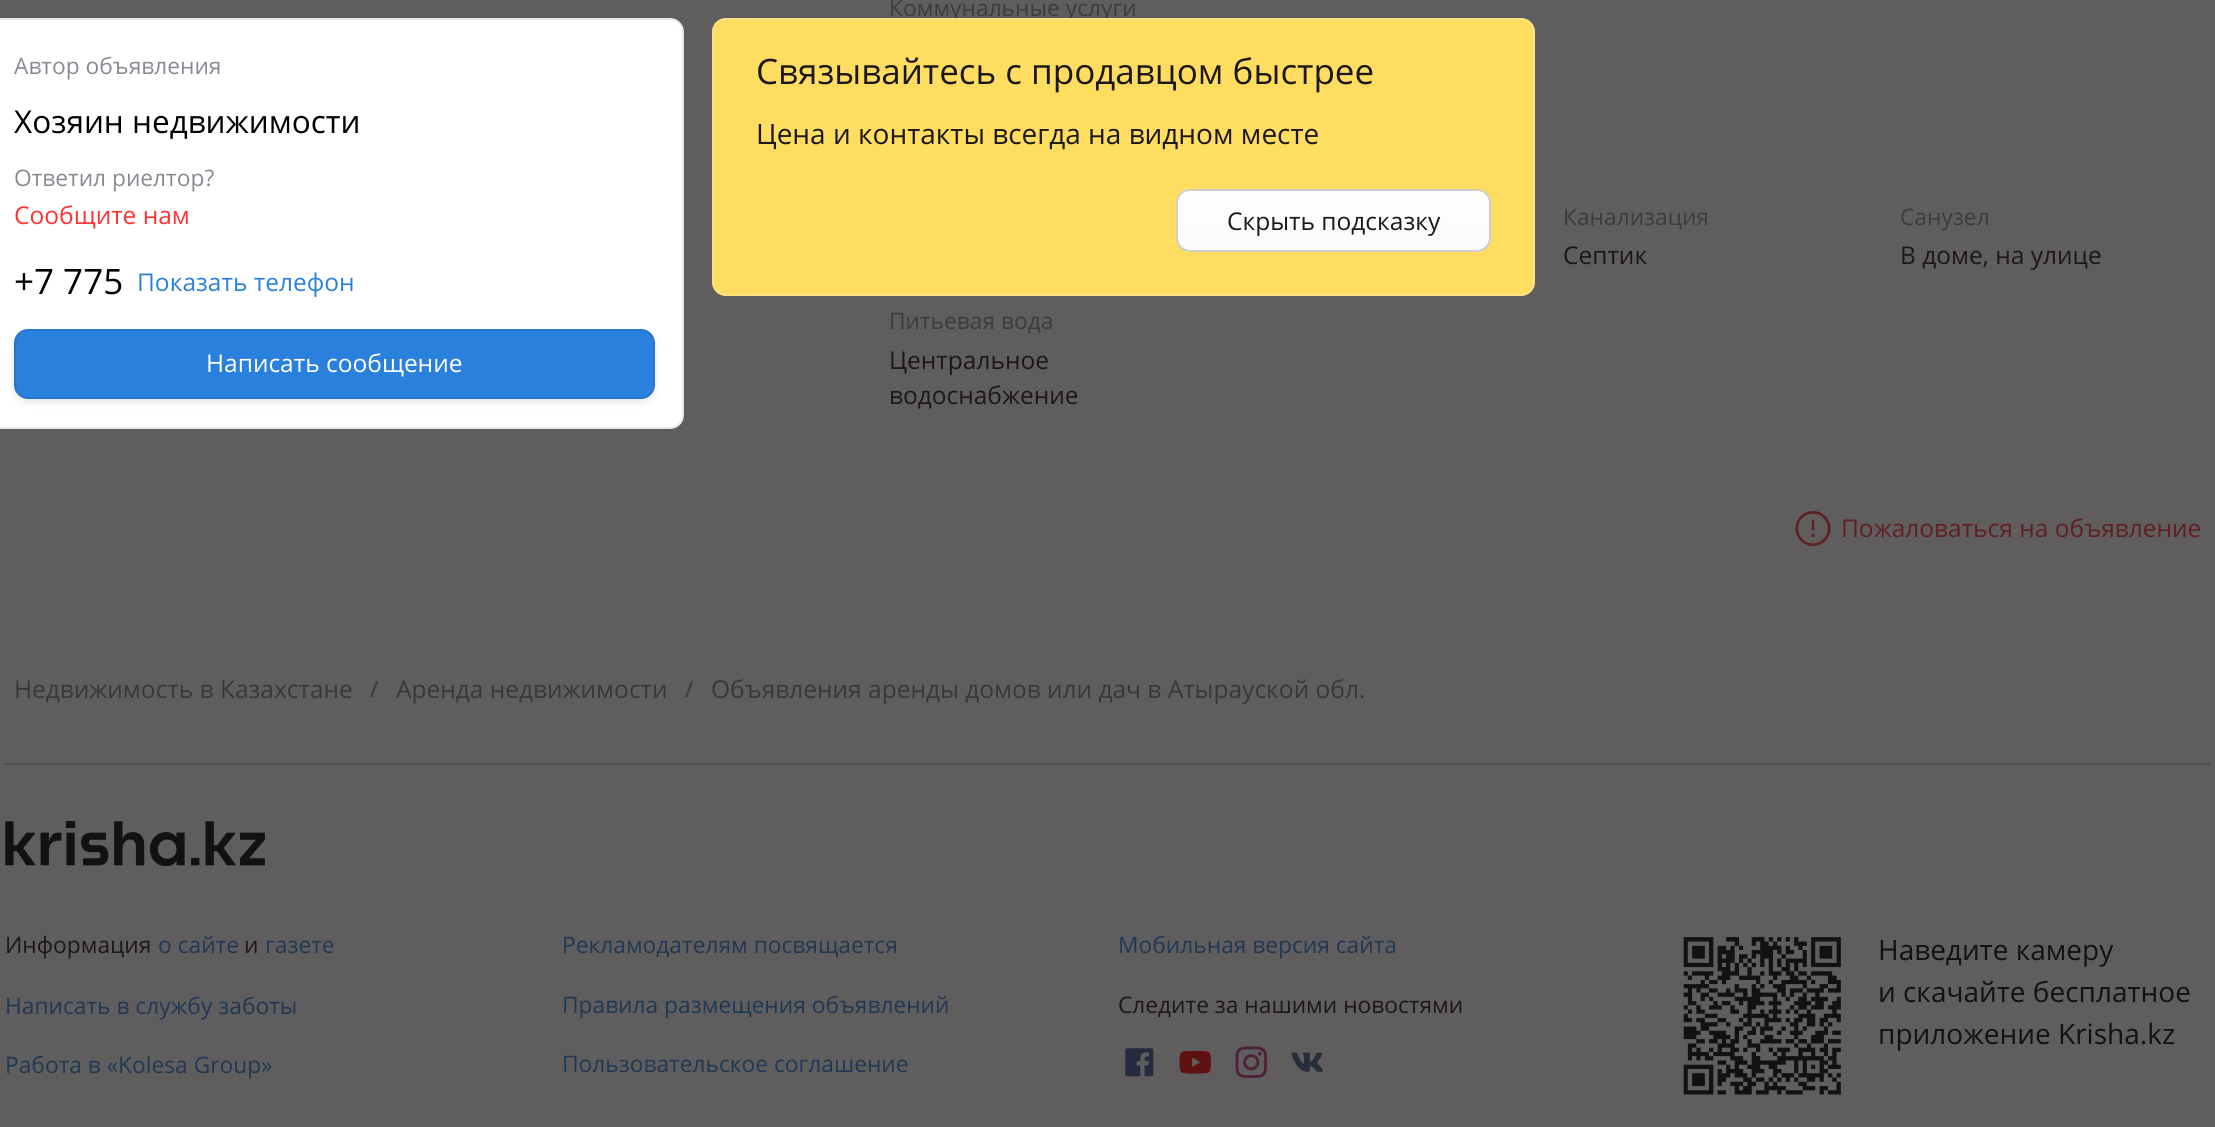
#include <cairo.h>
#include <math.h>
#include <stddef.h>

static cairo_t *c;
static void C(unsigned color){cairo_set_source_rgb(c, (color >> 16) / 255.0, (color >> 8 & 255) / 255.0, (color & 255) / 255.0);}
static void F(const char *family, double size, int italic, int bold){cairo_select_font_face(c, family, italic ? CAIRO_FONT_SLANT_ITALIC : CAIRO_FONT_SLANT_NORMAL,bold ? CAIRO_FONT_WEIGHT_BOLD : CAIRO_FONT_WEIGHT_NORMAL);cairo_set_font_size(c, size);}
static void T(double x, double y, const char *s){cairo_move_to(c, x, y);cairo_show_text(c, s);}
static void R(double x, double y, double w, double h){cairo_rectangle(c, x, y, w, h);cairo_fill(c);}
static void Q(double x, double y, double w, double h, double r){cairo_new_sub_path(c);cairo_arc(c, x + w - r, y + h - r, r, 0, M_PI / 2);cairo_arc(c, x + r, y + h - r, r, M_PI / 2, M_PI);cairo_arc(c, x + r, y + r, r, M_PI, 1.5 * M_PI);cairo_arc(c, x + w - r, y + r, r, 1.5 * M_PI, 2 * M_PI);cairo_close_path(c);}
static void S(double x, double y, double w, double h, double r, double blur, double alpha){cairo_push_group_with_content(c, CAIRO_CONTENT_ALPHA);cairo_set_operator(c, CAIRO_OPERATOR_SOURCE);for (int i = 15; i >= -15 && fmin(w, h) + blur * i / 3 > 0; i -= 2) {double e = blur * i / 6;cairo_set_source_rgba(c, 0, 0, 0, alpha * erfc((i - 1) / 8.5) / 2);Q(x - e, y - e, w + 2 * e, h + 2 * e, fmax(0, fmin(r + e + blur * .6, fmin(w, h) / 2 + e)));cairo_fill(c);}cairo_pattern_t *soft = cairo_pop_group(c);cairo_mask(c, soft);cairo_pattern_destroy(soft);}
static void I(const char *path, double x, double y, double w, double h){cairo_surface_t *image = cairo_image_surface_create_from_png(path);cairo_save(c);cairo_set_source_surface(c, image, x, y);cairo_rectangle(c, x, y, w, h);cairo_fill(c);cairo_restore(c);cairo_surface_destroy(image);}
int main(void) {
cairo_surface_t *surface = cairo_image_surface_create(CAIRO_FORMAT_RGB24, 2215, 1127);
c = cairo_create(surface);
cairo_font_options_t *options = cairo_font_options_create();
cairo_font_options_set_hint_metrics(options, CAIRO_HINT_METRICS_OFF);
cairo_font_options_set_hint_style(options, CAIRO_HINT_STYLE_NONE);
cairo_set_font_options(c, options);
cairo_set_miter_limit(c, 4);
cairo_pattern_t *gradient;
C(0x605d5e);
cairo_paint(c);
C(0xffffff);
Q(-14,18,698,411,14);
cairo_fill(c);
Q(-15,19,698,409,13);
cairo_set_source_rgba(c,0.11,0.094,0.098,0.1);
cairo_stroke(c);
F("Open Sans",22.75,0,0);
C(0x888b94);
T(14,74,"Автор объявления");
F("Open Sans",31.5,0,0);
C(0x000000);
T(14,133,"Хозяин недвижимости");
F("Open Sans",22.75,0,0);
C(0x888b94);
T(14,186,"Ответил риелтор?");
F("Open Sans",24.5,0,0);
C(0xff3333);
T(14,224,"Сообщите нам");
F("Open Sans",22.75,0,0);
C(0x3c3b3e);
T(889,16,"Коммунальные услуги");
C(0xffdd61);
Q(712,18,823,278,14);
cairo_fill(c);
Q(713,19,821,276,13);
cairo_set_source_rgba(c,0.992,0.91,0.639,0.5);
cairo_stroke(c);
F("Open Sans",35,0,0);
C(0x1c1819);
T(756,84,"Связывайтесь с продавцом быстрее");
F("Open Sans",28,0,0);
T(756,144,"Цена и контакты всегда на видном месте");
cairo_save(c);
Q(1176,189,315,63,14);
cairo_clip(c);
gradient = cairo_pattern_create_linear(1334,191,1334,131);
cairo_pattern_add_color_stop_rgba(gradient,0,0.98,0.98,0.98,1);
cairo_pattern_add_color_stop_rgba(gradient,1,1,1,1,1);
cairo_set_source(c,gradient);
cairo_pattern_destroy(gradient);
R(1176,189,315,2);
gradient = cairo_pattern_create_linear(1334,250,1334,191);
cairo_pattern_add_color_stop_rgba(gradient,0,0.98,0.98,0.98,1);
cairo_pattern_add_color_stop_rgba(gradient,1,1,1,1,1);
cairo_set_source(c,gradient);
cairo_pattern_destroy(gradient);
R(1176,191,315,59);
gradient = cairo_pattern_create_linear(1334,310,1334,250);
cairo_pattern_add_color_stop_rgba(gradient,0,0.98,0.98,0.98,1);
cairo_pattern_add_color_stop_rgba(gradient,1,1,1,1,1);
cairo_set_source(c,gradient);
cairo_pattern_destroy(gradient);
R(1176,250,315,2);
cairo_restore(c);
Q(1177,190,313,61,13);
cairo_set_source_rgba(c,0.11,0.094,0.098,0.2);
cairo_stroke(c);
F("Open Sans",24.5,0,0);
C(0x1c1819);
T(1227,230,"Скрыть подсказку");
F("Open Sans",35,0,0);
C(0x000000);
T(14,294,"+7 775");
F("Open Sans",24.5,0,0);
C(0x2a81dd);
T(137,291,"Показать телефон");
C(0x1c1819);
S(14,333,641,70,14,3.5,.1);
C(0x2a81dd);
Q(14,329,641,70,14);
cairo_fill(c);
Q(15,330,639,68,13);
cairo_set_source_rgba(c,0.11,0.094,0.098,0.1);
cairo_stroke(c);
C(0xffffff);
T(206,372,"Написать сообщение");
F("Open Sans",22.75,0,0);
C(0x3c3b3e);
T(1563,225,"Канализация");
F("Open Sans",24.5,0,0);
C(0x1c1819);
T(1563,264,"Септик");
F("Open Sans",22.75,0,0);
C(0x3c3b3e);
T(1900,225,"Санузел");
F("Open Sans",24.5,0,0);
C(0x1c1819);
T(1900,264,"В доме, на улице");
F("Open Sans",22.75,0,0);
C(0x3c3b3e);
T(889,329,"Питьевая вода");
F("Open Sans",24.5,0,0);
C(0x1c1819);
T(889,369,"Центральное");
T(889,404,"водоснабжение");
I("1.png",1795,511,36,35);
C(0x602021);
T(1841,537,"Пожаловаться на объявление");
C(0x3a3738);
T(14,698,"Недвижимость в Казахстане");
F("Open Sans",22.75,0,0);
T(370,697,"/");
F("Open Sans",24.5,0,0);
T(396,698,"Аренда недвижимости");
F("Open Sans",22.75,0,0);
T(685,697,"/");
F("Open Sans",24.5,0,0);
T(711,698,"Объявления аренды домов или дач в Атырауской обл.");
C(0x514e4f);
R(5,763,2205,2);
I("2.png",5,821,260,45);
F("Open Sans",22.75,0,0);
C(0x1c1819);
T(5,953,"Информация");
C(0x203854);
T(158,953,"о сайте");
C(0x1c1819);
T(244,953,"и");
C(0x203854);
T(265,953,"газете");
T(5,1014,"Написать в службу заботы");
T(5,1073,"Работа в «Kolesa Group»");
T(562,953,"Рекламодателям посвящается");
T(562,1013,"Правила размещения объявлений");
T(562,1072,"Пользовательское соглашение");
T(1118,953,"Мобильная версия сайта");
C(0x1c1819);
T(1118,1013,"Следите за нашими новостями");
I("3.png",1125,1048,29,29);
I("4.png",1179,1050,32,24);
I("5.png",1235,1046,32,32);
I("6.png",1291,1052,32,20);
I("7.png",1683,937,158,158);
F("Open Sans",28,0,0);
C(0x141112);
T(1878,960,"Наведите камеру");
T(1878,1002,"и скачайте бесплатное");
T(1878,1044,"приложение Krisha.kz");
cairo_surface_write_to_png(surface, "o.png");
cairo_font_options_destroy(options);
cairo_destroy(c);
cairo_surface_destroy(surface);
return 0;
}
